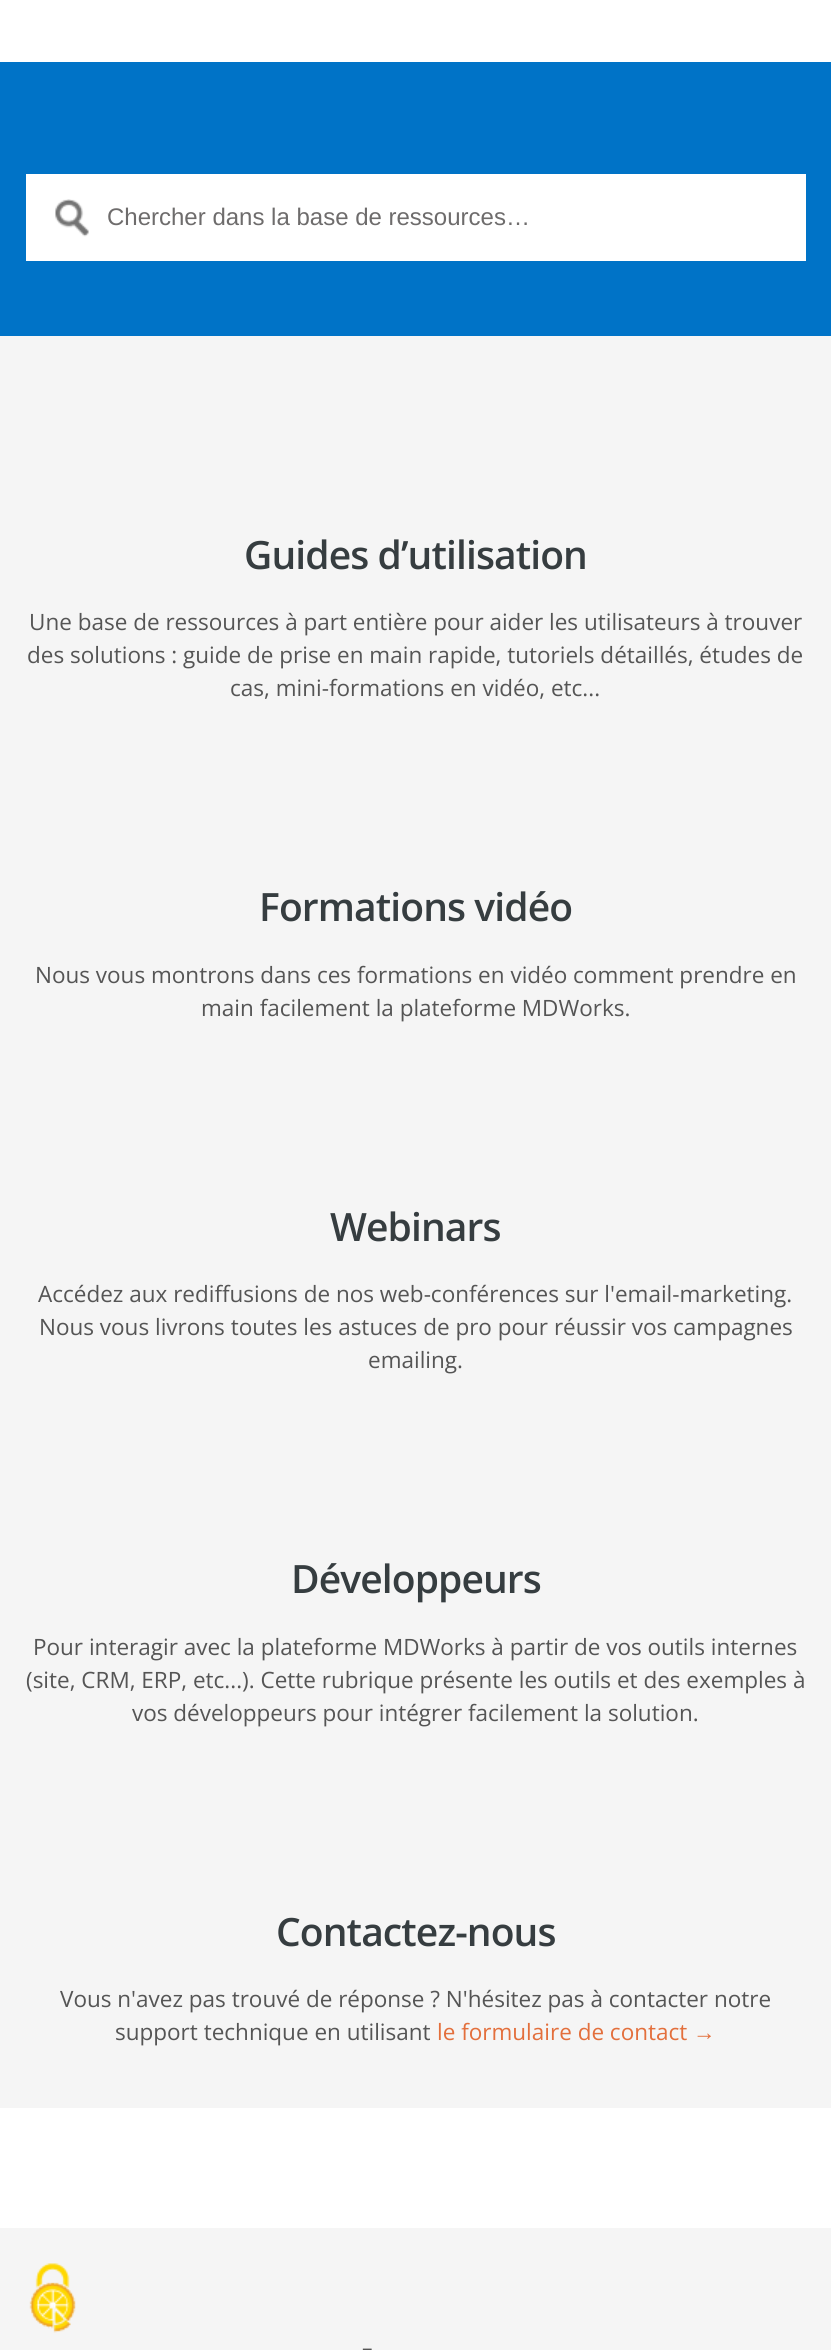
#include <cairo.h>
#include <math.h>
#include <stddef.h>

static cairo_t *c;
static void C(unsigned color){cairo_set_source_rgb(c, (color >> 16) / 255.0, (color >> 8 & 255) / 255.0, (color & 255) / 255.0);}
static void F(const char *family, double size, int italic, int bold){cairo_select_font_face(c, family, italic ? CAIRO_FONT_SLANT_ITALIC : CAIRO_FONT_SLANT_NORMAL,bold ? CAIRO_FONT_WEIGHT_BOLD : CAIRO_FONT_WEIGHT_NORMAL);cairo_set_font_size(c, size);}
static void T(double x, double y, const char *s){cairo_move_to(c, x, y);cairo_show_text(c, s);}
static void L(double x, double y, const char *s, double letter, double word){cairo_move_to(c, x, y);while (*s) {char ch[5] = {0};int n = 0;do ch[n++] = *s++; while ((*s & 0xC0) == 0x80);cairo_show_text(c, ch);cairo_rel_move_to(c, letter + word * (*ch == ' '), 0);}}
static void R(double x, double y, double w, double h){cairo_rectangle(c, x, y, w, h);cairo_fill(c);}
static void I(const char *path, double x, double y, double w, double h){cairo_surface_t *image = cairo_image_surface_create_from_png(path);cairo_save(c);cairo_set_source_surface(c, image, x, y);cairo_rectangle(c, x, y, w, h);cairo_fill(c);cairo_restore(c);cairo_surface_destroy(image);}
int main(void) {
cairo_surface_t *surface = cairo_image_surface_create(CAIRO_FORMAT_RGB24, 831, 2350);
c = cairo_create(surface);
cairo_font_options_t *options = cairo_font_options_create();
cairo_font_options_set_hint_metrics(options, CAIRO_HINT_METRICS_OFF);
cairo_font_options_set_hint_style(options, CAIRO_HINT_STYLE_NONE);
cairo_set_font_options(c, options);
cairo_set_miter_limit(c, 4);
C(0xffffff);
cairo_paint(c);
C(0x0073c7);
R(0,62,831,274);
C(0xffffff);
R(26,174,780,87);
I("1.png",55,199,34,38);
F("Liberation Sans",24,0,0);
C(0x6e6c6c);
T(107,225,"Chercher dans la base de ressources…");
C(0xf5f5f5);
R(0,336,831,1772);
F("Open Sans SemiBold",39,0,0);
C(0x363d40);
L(244,569,"Guides d’utilisation",-.9,0);
F("Open Sans",22.5,0,0);
C(0x555555);
T(29,630,"Une base de ressources à part entière pour aider les utilisateurs à trouver");
T(27,663,"des solutions : guide de prise en main rapide, tutoriels détaillés, études de");
T(230,696,"cas, mini-formations en vidéo, etc...");
F("Open Sans SemiBold",39,0,0);
C(0x363d40);
L(259,921,"Formations vidéo",-.9,0);
F("Open Sans",22.5,0,0);
C(0x555555);
T(35,983,"Nous vous montrons dans ces formations en vidéo comment prendre en");
T(201,1016,"main facilement la plateforme MDWorks.");
F("Open Sans SemiBold",39,0,0);
C(0x363d40);
L(330,1241,"Webinars",-.9,0);
F("Open Sans",22.5,0,0);
C(0x555555);
T(38,1302,"Accédez aux rediffusions de nos web-conférences sur l'email-marketing.");
T(39,1335,"Nous vous livrons toutes les astuces de pro pour réussir vos campagnes");
T(368,1368,"emailing.");
F("Open Sans SemiBold",39,0,0);
C(0x363d40);
L(291,1593,"Développeurs",-.9,0);
F("Open Sans",22.5,0,0);
C(0x555555);
T(33,1655,"Pour interagir avec la plateforme MDWorks à partir de vos outils internes");
T(26,1688,"(site, CRM, ERP, etc...). Cette rubrique présente les outils et des exemples à");
T(132,1721,"vos développeurs pour intégrer facilement la solution.");
F("Open Sans SemiBold",39,0,0);
C(0x363d40);
L(276,1946,"Contactez-nous",-.9,0);
F("Open Sans",22.5,0,0);
C(0x555555);
T(60,2007,"Vous n'avez pas trouvé de réponse ? N'hésitez pas à contacter notre");
T(115,2040,"support technique en utilisant");
C(0xe36f3c);
T(437,2040,"le formulaire de contact");
F("Liberation Sans",22.5,0,0);
T(693,2040,"→");
C(0xf5f5f5);
R(0,2228,831,122);
I("2.png",29,2263,47,70);
F("Open Sans",21,0,0);
C(0x555555);
T(362,2355,"–");
cairo_surface_write_to_png(surface, "o.png");
cairo_font_options_destroy(options);
cairo_destroy(c);
cairo_surface_destroy(surface);
return 0;
}
